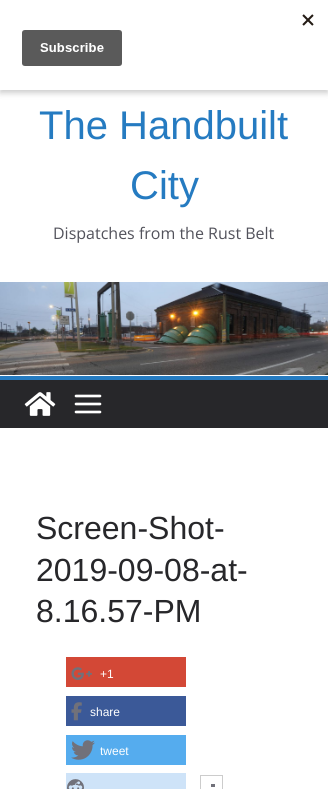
#include <cairo.h>
#include <math.h>
#include <stddef.h>

static cairo_t *c;
static void C(unsigned color){cairo_set_source_rgb(c, (color >> 16) / 255.0, (color >> 8 & 255) / 255.0, (color & 255) / 255.0);}
static void F(const char *family, double size, int italic, int bold){cairo_select_font_face(c, family, italic ? CAIRO_FONT_SLANT_ITALIC : CAIRO_FONT_SLANT_NORMAL,bold ? CAIRO_FONT_WEIGHT_BOLD : CAIRO_FONT_WEIGHT_NORMAL);cairo_set_font_size(c, size);}
static void T(double x, double y, const char *s){cairo_move_to(c, x, y);cairo_show_text(c, s);}
static void R(double x, double y, double w, double h){cairo_rectangle(c, x, y, w, h);cairo_fill(c);}
static void Q(double x, double y, double w, double h, double r){cairo_new_sub_path(c);cairo_arc(c, x + w - r, y + h - r, r, 0, M_PI / 2);cairo_arc(c, x + r, y + h - r, r, M_PI / 2, M_PI);cairo_arc(c, x + r, y + r, r, M_PI, 1.5 * M_PI);cairo_arc(c, x + w - r, y + r, r, 1.5 * M_PI, 2 * M_PI);cairo_close_path(c);}
static void S(double x, double y, double w, double h, double r, double blur, double alpha){cairo_push_group_with_content(c, CAIRO_CONTENT_ALPHA);cairo_set_operator(c, CAIRO_OPERATOR_SOURCE);for (int i = 15; i >= -15 && fmin(w, h) + blur * i / 3 > 0; i -= 2) {double e = blur * i / 6;cairo_set_source_rgba(c, 0, 0, 0, alpha * erfc((i - 1) / 8.5) / 2);Q(x - e, y - e, w + 2 * e, h + 2 * e, fmax(0, fmin(r + e + blur * .6, fmin(w, h) / 2 + e)));cairo_fill(c);}cairo_pattern_t *soft = cairo_pop_group(c);cairo_mask(c, soft);cairo_pattern_destroy(soft);}
static void I(const char *path, double x, double y, double w, double h){cairo_surface_t *image = cairo_image_surface_create_from_png(path);cairo_save(c);cairo_set_source_surface(c, image, x, y);cairo_rectangle(c, x, y, w, h);cairo_fill(c);cairo_restore(c);cairo_surface_destroy(image);}
int main(void) {
cairo_surface_t *surface = cairo_image_surface_create(CAIRO_FORMAT_RGB24, 328, 789);
c = cairo_create(surface);
cairo_font_options_t *options = cairo_font_options_create();
cairo_font_options_set_hint_metrics(options, CAIRO_HINT_METRICS_OFF);
cairo_font_options_set_hint_style(options, CAIRO_HINT_STYLE_NONE);
cairo_set_font_options(c, options);
cairo_set_miter_limit(c, 4);
C(0xffffff);
cairo_paint(c);
C(0x000000);
S(0,3,328,90,0,3,.2);
C(0xffffff);
R(0,0,328,90);
I("1.png",22,14,292,52);
F("Liberation Sans",40,0,0);
C(0x257bc1);
T(39,139,"The Handbuilt");
T(130,199,"City");
F("Open Sans",16,0,0);
C(0x52525b);
T(53,239,"Dispatches from the Rust Belt");
I("2.png",0,282,328,93);
C(0x27272a);
R(0,380,328,48);
C(0x257bc1);
R(0,376,328,4);
I("3.png",24,392,32,24);
I("4.png",74,394,28,20);
F("Liberation Sans",32,0,0);
C(0x27272a);
T(36,539,"Screen-Shot-");
T(36,581,"2019-09-08-at-");
T(36,622,"8.16.57-PM");
C(0xd34836);
R(66,657,120,30);
I("5.png",71,667,21,13);
F("Liberation Sans",12,0,0);
C(0xffffff);
T(100,678,"+1");
C(0x3b5998);
R(66,696,120,30);
I("6.png",71,702,11,19);
C(0xffffff);
T(90,716,"share");
C(0x55acee);
R(66,735,120,30);
I("7.png",71,740,24,20);
C(0xffffff);
T(100,755,"tweet");
C(0xcee3f8);
R(66,773,120,16);
I("8.png",67,779,17,10);
cairo_rectangle(c,200.5,775.5,22,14);
C(0xcccccc);
cairo_set_line_width(c,1);
cairo_stroke(c);
C(0x71717a);
R(211,784,4,3);
cairo_surface_write_to_png(surface, "o.png");
cairo_font_options_destroy(options);
cairo_destroy(c);
cairo_surface_destroy(surface);
return 0;
}
